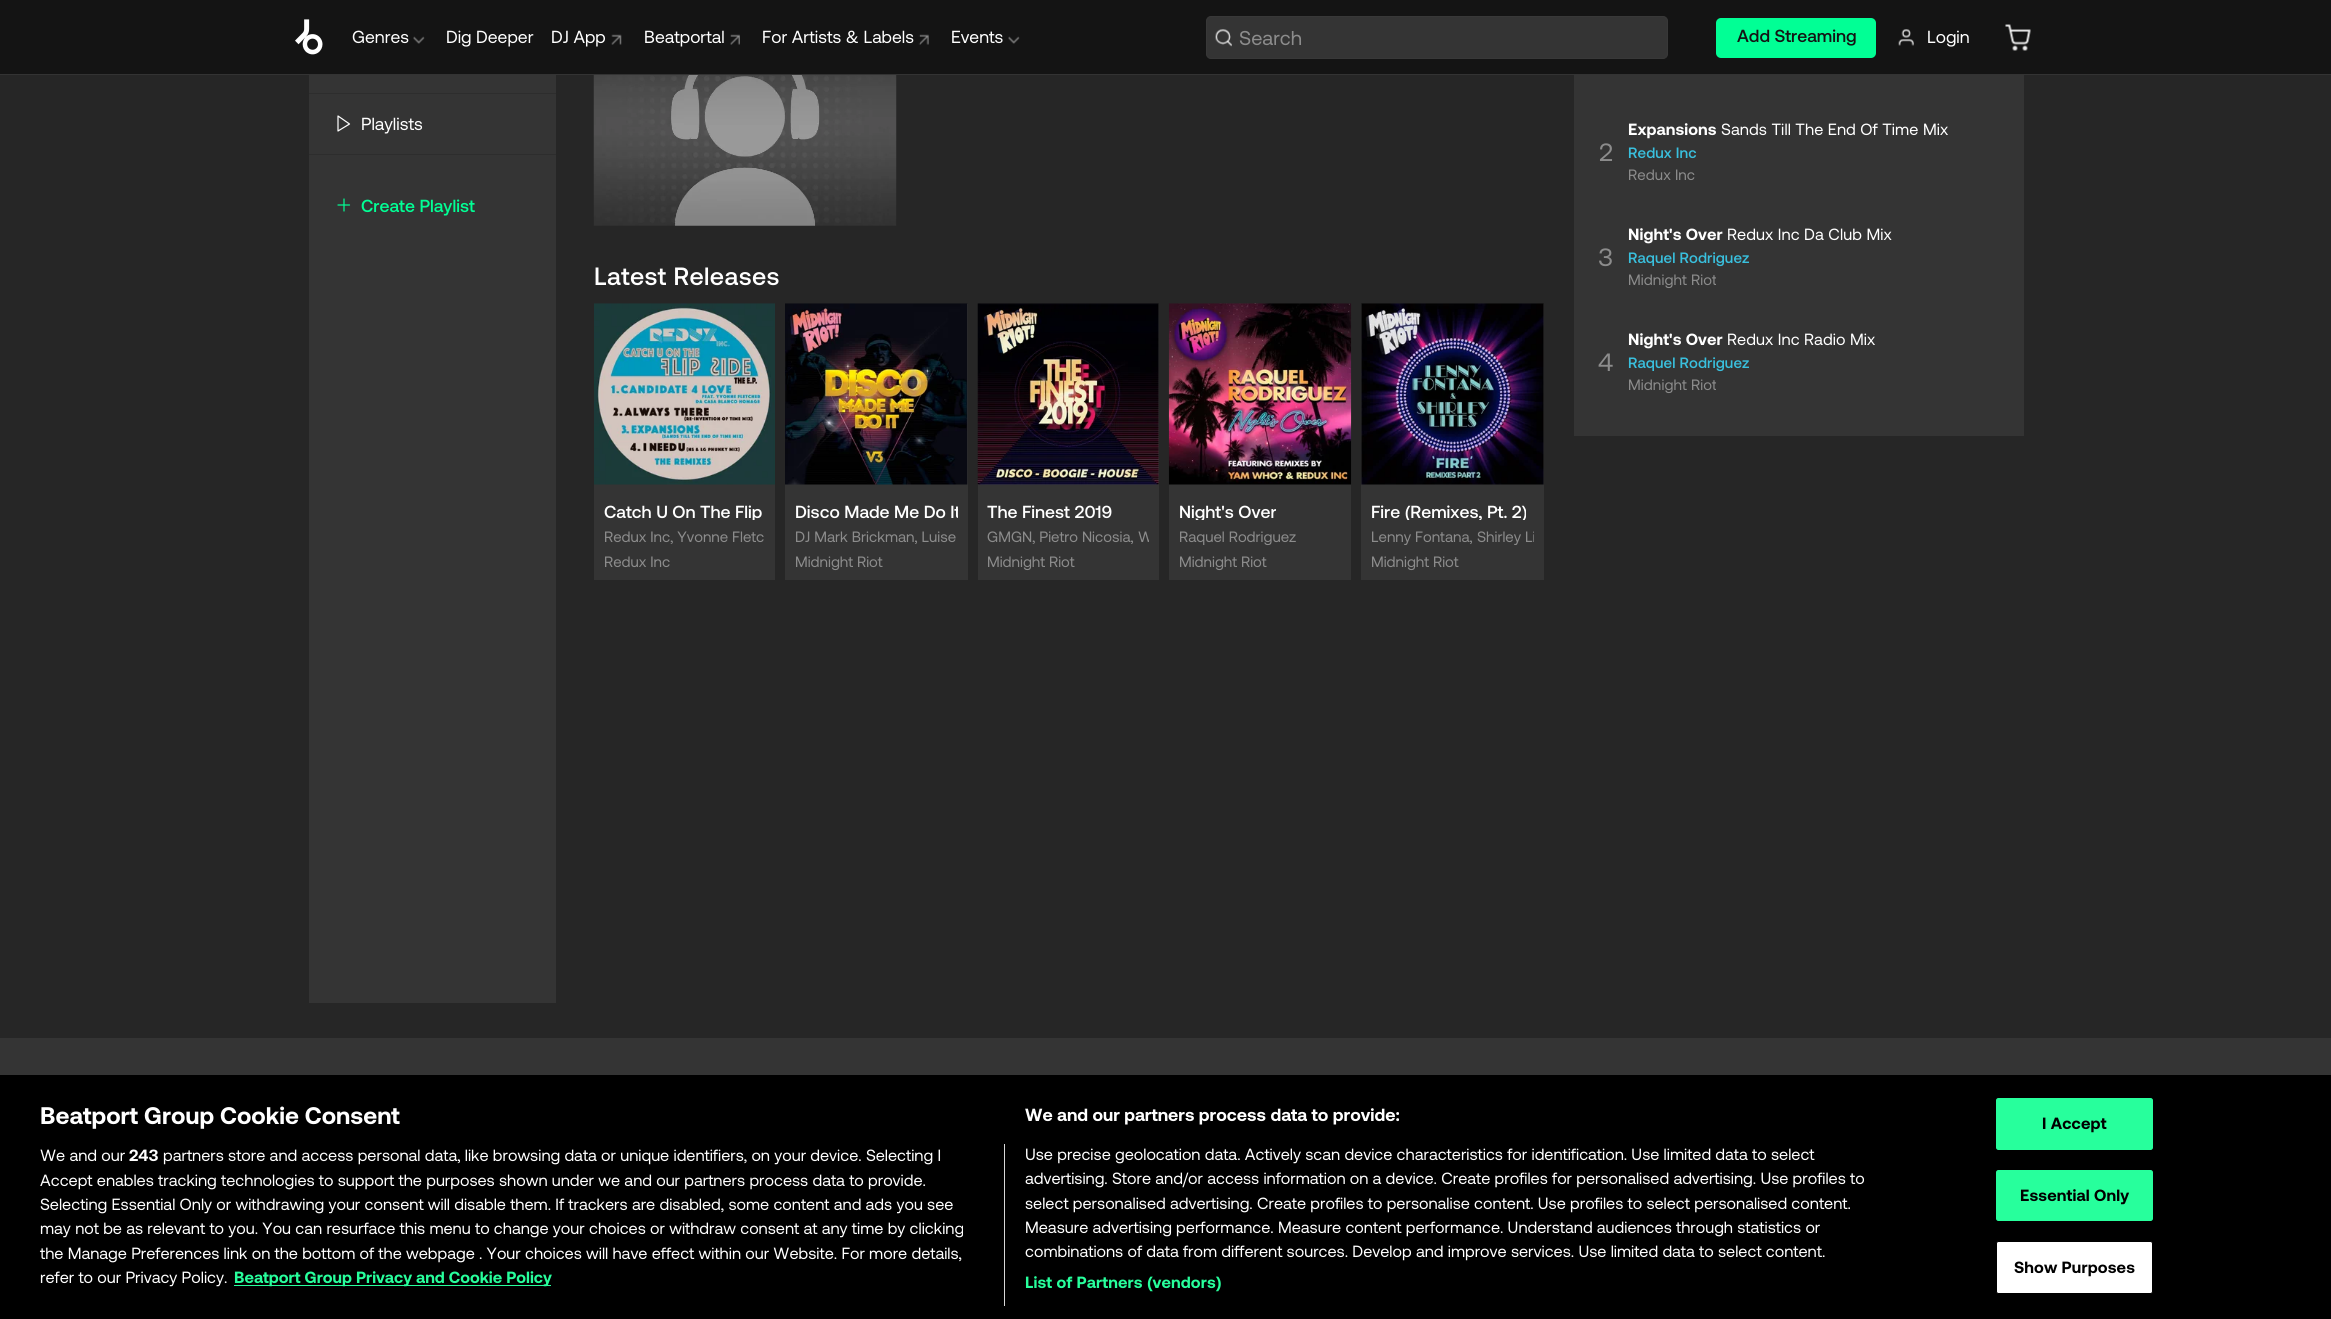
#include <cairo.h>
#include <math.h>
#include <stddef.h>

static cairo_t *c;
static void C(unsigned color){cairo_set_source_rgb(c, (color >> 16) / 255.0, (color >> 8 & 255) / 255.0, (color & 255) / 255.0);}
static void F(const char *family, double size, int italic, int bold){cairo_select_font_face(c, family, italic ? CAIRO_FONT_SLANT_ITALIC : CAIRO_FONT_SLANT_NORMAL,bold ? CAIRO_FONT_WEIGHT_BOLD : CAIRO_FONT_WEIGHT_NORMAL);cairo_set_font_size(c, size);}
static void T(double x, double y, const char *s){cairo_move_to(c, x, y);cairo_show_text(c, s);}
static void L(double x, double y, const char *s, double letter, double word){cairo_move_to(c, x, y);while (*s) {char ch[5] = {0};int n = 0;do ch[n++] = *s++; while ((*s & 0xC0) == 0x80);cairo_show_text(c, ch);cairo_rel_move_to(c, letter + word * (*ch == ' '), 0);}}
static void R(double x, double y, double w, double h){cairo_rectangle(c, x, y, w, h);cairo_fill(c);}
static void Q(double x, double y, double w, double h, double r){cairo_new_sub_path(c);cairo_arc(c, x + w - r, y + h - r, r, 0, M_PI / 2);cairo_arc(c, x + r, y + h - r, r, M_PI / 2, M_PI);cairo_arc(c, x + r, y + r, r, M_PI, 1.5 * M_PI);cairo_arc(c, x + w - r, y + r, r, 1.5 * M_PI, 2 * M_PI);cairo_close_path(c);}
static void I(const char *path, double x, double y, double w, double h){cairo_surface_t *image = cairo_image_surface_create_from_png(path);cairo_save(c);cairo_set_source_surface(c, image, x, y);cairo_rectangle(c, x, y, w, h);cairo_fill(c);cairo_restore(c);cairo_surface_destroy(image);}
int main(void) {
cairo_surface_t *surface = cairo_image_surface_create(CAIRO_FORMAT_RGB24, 2331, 1319);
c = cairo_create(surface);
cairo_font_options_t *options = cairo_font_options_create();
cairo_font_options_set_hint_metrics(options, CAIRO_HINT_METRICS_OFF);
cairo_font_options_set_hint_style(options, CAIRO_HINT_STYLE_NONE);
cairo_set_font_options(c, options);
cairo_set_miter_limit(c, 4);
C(0x262626);
cairo_paint(c);
C(0x141414);
R(0,0,2331,74);
C(0x333333);
R(0,74,2331,1);
I("1.png",295,19,28,36);
F("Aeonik",17.5,0,0);
C(0xffffff);
T(352,43,"Genres");
I("2.png",413,36,12,8);
T(446,43,"Dig Deeper");
T(551,43,"DJ App");
I("3.png",611,34,11,11);
T(644,43,"Beatportal");
I("4.png",730,34,10,11);
T(762,43,"For Artists & Labels");
I("5.png",918,34,11,11);
T(951,43,"Events");
I("2.png",1008,36,12,8);
C(0x343434);
Q(1206.5,16.5,461,42,4.5);
cairo_fill_preserve(c);
C(0x383838);
cairo_set_line_width(c,1);
cairo_stroke(c);
I("6.png",1215,29,17,18);
C(0x343434);
R(1665,57,1,1);
F("Aeonik",20,0,0);
C(0x8c8c8c);
T(1239,45,"Search");
C(0x01ff95);
Q(1716,18,160,40,5);
cairo_fill(c);
F("Aeonik Medium",17.5,0,0);
C(0x141414);
T(1737,42,"Add Streaming");
I("7.png",1898,29,16,17);
F("Aeonik",17.5,0,0);
C(0xffffff);
T(1927,43,"Login");
I("8.png",2005,24,26,27);
C(0x343434);
R(309,75,247,928);
C(0x2d2d2d);
R(309,93,247,1);
R(309,154,247,1);
cairo_new_path(c);
cairo_move_to(c,338,116);
cairo_line_to(c,349.5,124);
cairo_line_to(c,338,131);
cairo_close_path(c);
C(0xffffff);
cairo_set_line_width(c,1.2);
cairo_set_line_cap(c,CAIRO_LINE_CAP_ROUND);
cairo_set_line_join(c,CAIRO_LINE_JOIN_ROUND);
cairo_stroke(c);
T(361,130,"Playlists");
cairo_new_path(c);
cairo_move_to(c,344,199);
cairo_line_to(c,344,211);
cairo_move_to(c,338,205);
cairo_line_to(c,349.5,205);
C(0x01ff95);
cairo_stroke(c);
F("Aeonik Medium",17.5,0,0);
T(361,212,"Create Playlist");
I("9.png",593,75,304,151);
F("Aeonik Medium",25,0,0);
C(0xffffff);
L(594,285,"Latest Releases",.4,0);
C(0x343434);
R(594,484,181,96);
I("10.png",594,303,181,182);
cairo_save(c);
cairo_rectangle(c,604,495,161,25);
cairo_clip(c);
F("Aeonik Medium",17.5,0,0);
C(0xffffff);
T(604,518,"Catch U On The Flip");
cairo_restore(c);
F("Aeonik",15,0,0);
C(0x8c8c8c);
T(604,542,"Redux Inc, Yvonne Fletc");
T(604,567,"Redux Inc");
C(0x343434);
R(785,304,183,276);
I("11.png",785,303,183,182);
cairo_save(c);
cairo_rectangle(c,795,495,163,25);
cairo_clip(c);
F("Aeonik Medium",17.5,0,0);
C(0xffffff);
T(795,518,"Disco Made Me Do It");
cairo_restore(c);
C(0x8c8c8c);
T(795,542,"DJ Mark Brickman, Luise");
T(795,567,"Midnight Riot");
C(0x343434);
R(978,304,181,276);
I("12.png",977,303,182,182);
F("Aeonik Medium",17.5,0,0);
C(0xffffff);
T(987,518,"The Finest 2019");
F("Aeonik",15,0,0);
C(0x8c8c8c);
T(987,542,"GMGN, Pietro Nicosia,");
cairo_save(c);
cairo_rectangle(c,988,525,161,20);
cairo_clip(c);
T(1138,542,"W");
cairo_restore(c);
T(987,567,"Midnight Riot");
C(0x343434);
R(1169,484,182,96);
I("13.png",1168,303,184,182);
cairo_save(c);
cairo_rectangle(c,1179,495,97,25);
cairo_clip(c);
F("Aeonik Medium",17.5,0,0);
C(0xffffff);
T(1179,518,"Night's Over");
cairo_restore(c);
C(0x8c8c8c);
T(1179,542,"Raquel Rodriguez");
T(1179,567,"Midnight Riot");
C(0x343434);
R(1361,304,183,276);
I("14.png",1361,303,183,182);
cairo_save(c);
cairo_rectangle(c,1371,495,155,25);
cairo_clip(c);
F("Aeonik Medium",17.5,0,0);
C(0xffffff);
T(1371,518,"Fire (Remixes, Pt. 2)");
cairo_restore(c);
C(0x8c8c8c);
T(1371,542,"Lenny Fontana,");
cairo_save(c);
cairo_rectangle(c,1371,525,163,20);
cairo_clip(c);
T(1477,542,"Shirley Li");
cairo_restore(c);
T(1371,567,"Midnight Riot");
C(0x343434);
R(1574,75,450,361);
F("Aeonik",25,0,0);
C(0x8c8c8c);
T(1599,161,"2");
F("Aeonik",16.25,0,1);
C(0xffffff);
L(1628,135,"Expansions",.1,0);
F("Aeonik",16.25,0,0);
L(1721,135,"Sands Till The End Of Time Mix",.1,0);
F("Aeonik Medium",15,0,0);
C(0x39c0de);
L(1628,158,"Redux Inc",.1,0);
F("Aeonik",15,0,0);
C(0x8c8c8c);
L(1628,180,"Redux Inc",.1,0);
F("Aeonik",25,0,0);
T(1598,266,"3");
F("Aeonik",16.25,0,1);
C(0xffffff);
L(1628,240,"Night's Over",.1,0);
F("Aeonik",16.25,0,0);
L(1727,240,"Redux Inc Da Club Mix",.1,0);
F("Aeonik Medium",15,0,0);
C(0x39c0de);
L(1628,263,"Raquel Rodriguez",.1,0);
cairo_save(c);
cairo_rectangle(c,1629,266,87,25);
cairo_clip(c);
F("Aeonik",15,0,0);
C(0x8c8c8c);
L(1628,285,"Midnight Riot",.1,0);
cairo_restore(c);
F("Aeonik",25,0,0);
C(0x8c8c8c);
T(1598,371,"4");
F("Aeonik",16.25,0,1);
C(0xffffff);
L(1628,345,"Night's Over",.1,0);
F("Aeonik",16.25,0,0);
L(1727,345,"Redux Inc Radio Mix",.1,0);
F("Aeonik Medium",15,0,0);
C(0x39c0de);
L(1628,368,"Raquel Rodriguez",.1,0);
cairo_save(c);
cairo_rectangle(c,1629,371,87,25);
cairo_clip(c);
F("Aeonik",15,0,0);
C(0x8c8c8c);
L(1628,390,"Midnight Riot",.1,0);
cairo_restore(c);
C(0x343434);
R(0,1038,2331,37);
C(0x000000);
R(0,1075,2331,244);
F("Aeonik",24,0,1);
C(0xffffff);
T(40,1124,"Beatport Group Cookie Consent");
F("Aeonik",17.6,0,1);
T(1025,1121,"We and our partners process data to provide:");
F("Aeonik",16.25,0,0);
T(1025,1160,"Use precise geolocation data. Actively scan device characteristics for identification. Use limited data to select");
T(1025,1184,"advertising. Store and/or access information on a device. Create profiles for personalised advertising. Use profiles to");
T(1025,1209,"select personalised advertising. Create profiles to personalise content. Use profiles to select personalised content.");
T(1025,1233,"Measure advertising performance. Measure content performance. Understand audiences through statistics or");
T(1025,1257,"combinations of data from different sources. Develop and improve services. Use limited data to select content.");
F("Aeonik",16.25,0,1);
C(0x27ff9c);
L(1025,1288,"List of Partners (vendors)",.15,0);
C(0xd8d8d8);
R(1004,1144,1,162);
F("Aeonik",16.25,0,0);
C(0xffffff);
T(40,1161,"We and our");
F("Aeonik",16.25,0,1);
T(129,1161,"243");
F("Aeonik",16.25,0,0);
T(163,1161,"partners store and access personal data, like browsing data or unique identifiers, on your device. Selecting I");
T(40,1186,"Accept enables tracking technologies to support the purposes shown under we and our partners process data to provide.");
T(40,1210,"Selecting Essential Only or withdrawing your consent will disable them. If trackers are disabled, some content and ads you see");
T(40,1234,"may not be as relevant to you. You can resurface this menu to change your choices or withdraw consent at any time by clicking");
T(40,1259,"the Manage Preferences link on the bottom of the webpage . Your choices will have effect within our Website. For more details,");
T(40,1283,"refer to our Privacy Policy.");
C(0x27ff9c);
R(234,1285,317,1);
F("Aeonik",16.25,0,1);
T(234,1283,"Beatport Group Privacy and Cookie Policy");
Q(1996.5,1098.5,156,51,2);
cairo_fill_preserve(c);
cairo_set_line_width(c,1);
cairo_set_line_cap(c,CAIRO_LINE_CAP_BUTT);
cairo_set_line_join(c,CAIRO_LINE_JOIN_MITER);
cairo_stroke(c);
C(0x000000);
L(2042,1129,"I Accept",.15,0);
C(0x27ff9c);
Q(1996.5,1170.5,156,50,2);
cairo_fill_preserve(c);
cairo_stroke(c);
C(0x000000);
L(2020,1201,"Essential Only",.15,0);
C(0xffffff);
Q(1996.5,1241.5,156,52,2);
cairo_fill_preserve(c);
C(0x000000);
cairo_stroke(c);
L(2014,1273,"Show Purposes",.15,0);
cairo_surface_write_to_png(surface, "o.png");
cairo_font_options_destroy(options);
cairo_destroy(c);
cairo_surface_destroy(surface);
return 0;
}
